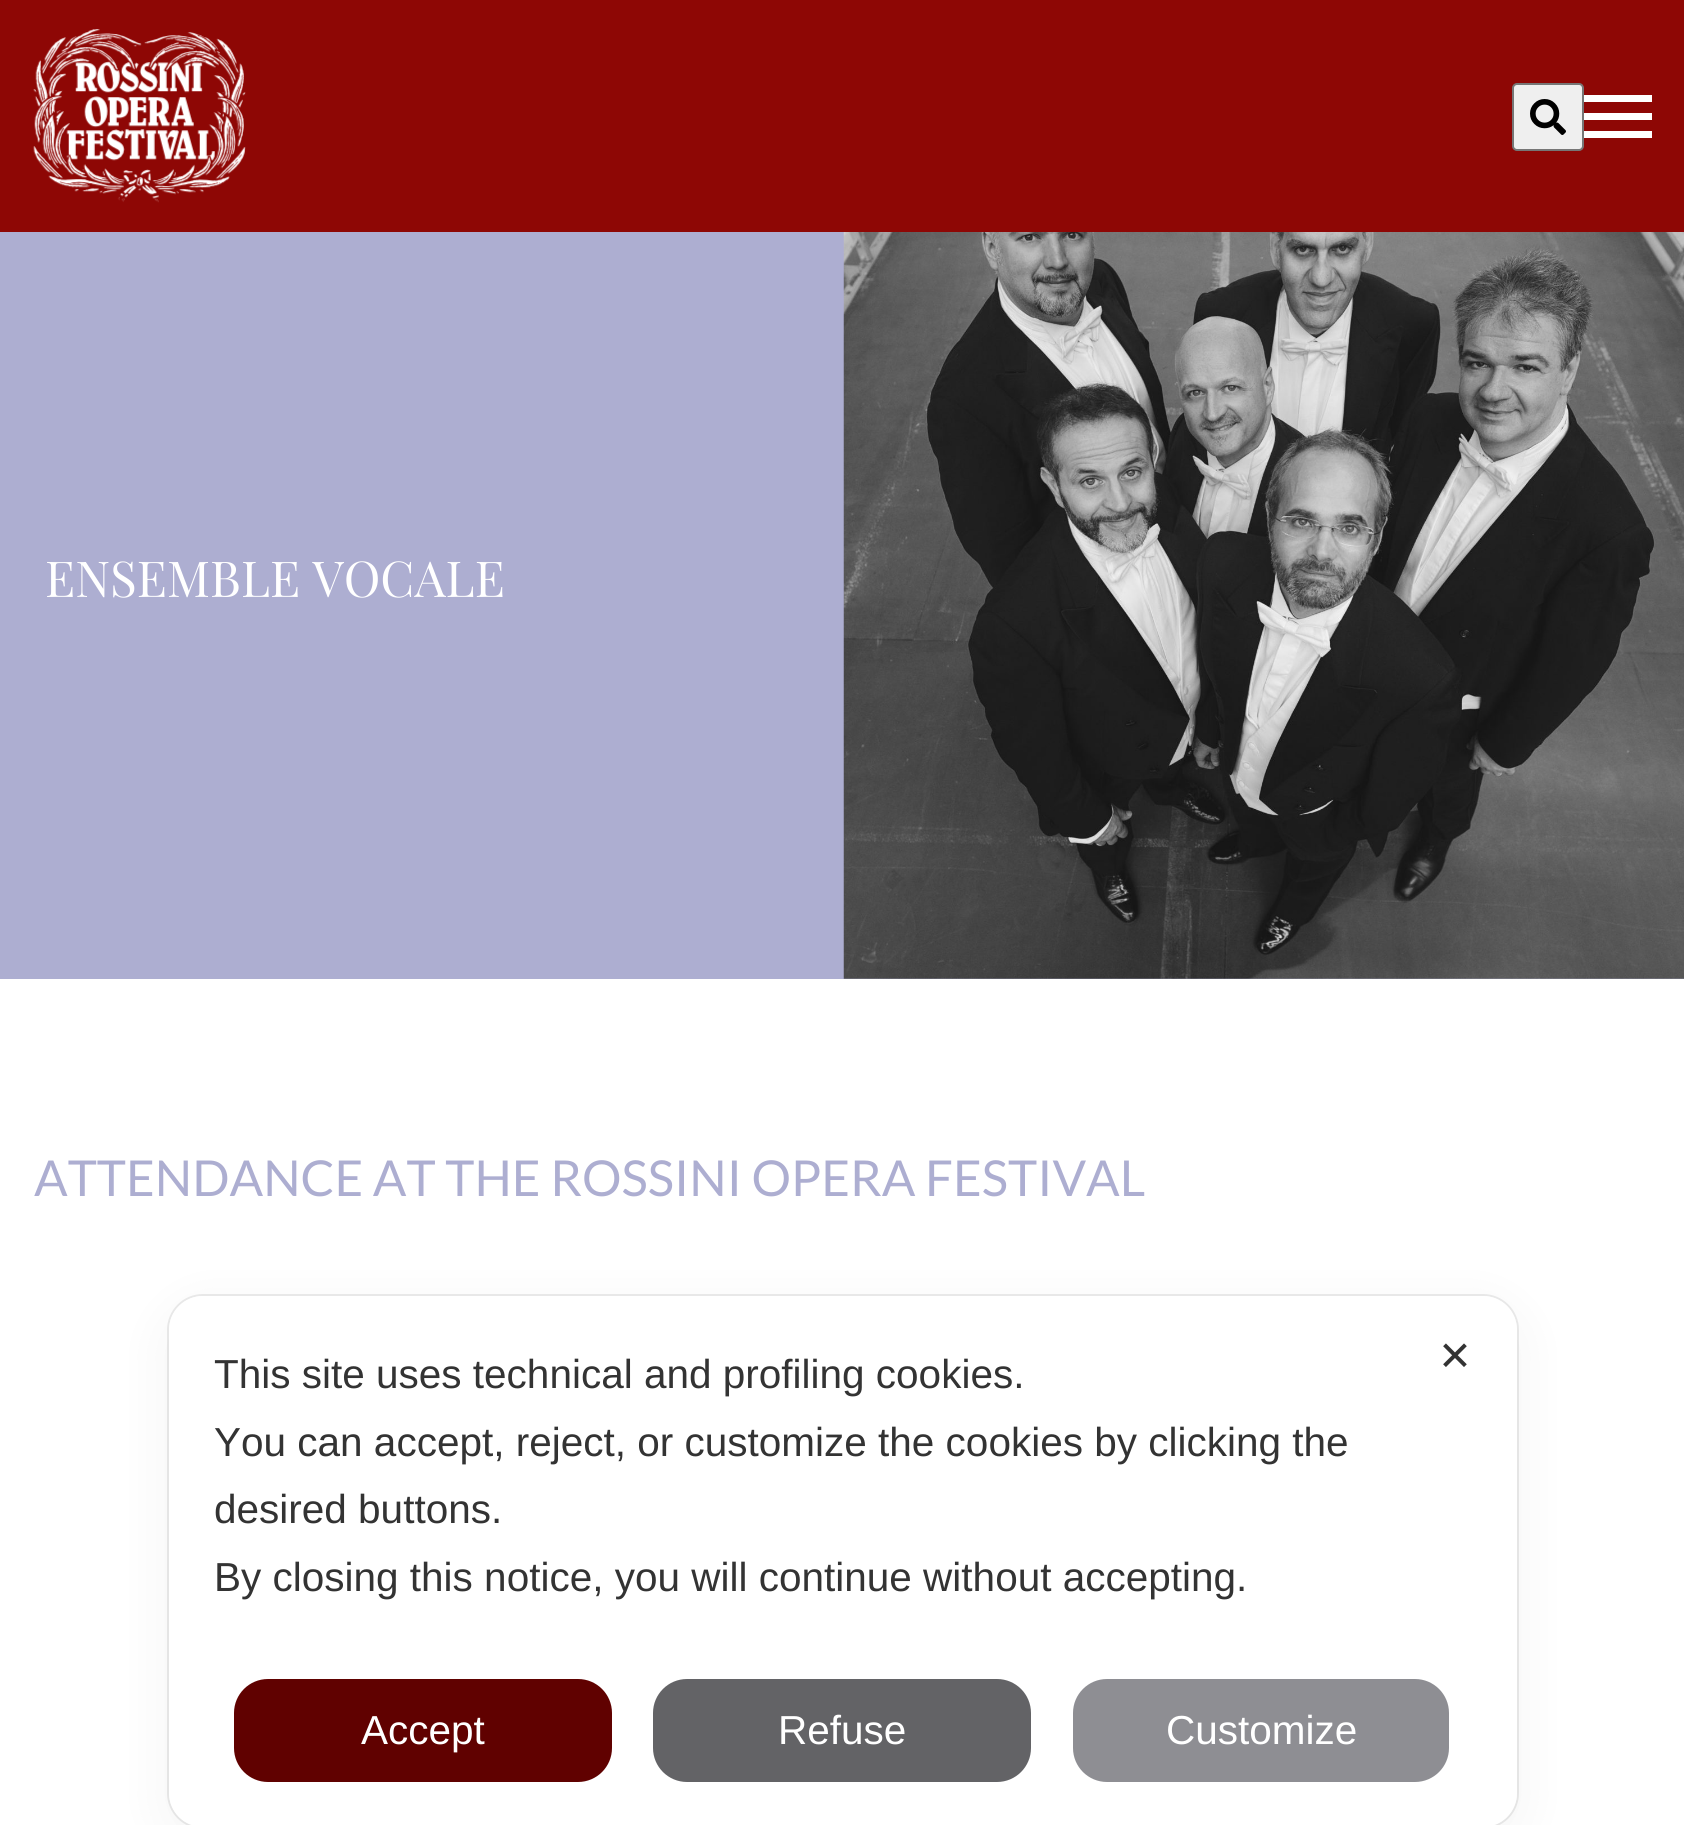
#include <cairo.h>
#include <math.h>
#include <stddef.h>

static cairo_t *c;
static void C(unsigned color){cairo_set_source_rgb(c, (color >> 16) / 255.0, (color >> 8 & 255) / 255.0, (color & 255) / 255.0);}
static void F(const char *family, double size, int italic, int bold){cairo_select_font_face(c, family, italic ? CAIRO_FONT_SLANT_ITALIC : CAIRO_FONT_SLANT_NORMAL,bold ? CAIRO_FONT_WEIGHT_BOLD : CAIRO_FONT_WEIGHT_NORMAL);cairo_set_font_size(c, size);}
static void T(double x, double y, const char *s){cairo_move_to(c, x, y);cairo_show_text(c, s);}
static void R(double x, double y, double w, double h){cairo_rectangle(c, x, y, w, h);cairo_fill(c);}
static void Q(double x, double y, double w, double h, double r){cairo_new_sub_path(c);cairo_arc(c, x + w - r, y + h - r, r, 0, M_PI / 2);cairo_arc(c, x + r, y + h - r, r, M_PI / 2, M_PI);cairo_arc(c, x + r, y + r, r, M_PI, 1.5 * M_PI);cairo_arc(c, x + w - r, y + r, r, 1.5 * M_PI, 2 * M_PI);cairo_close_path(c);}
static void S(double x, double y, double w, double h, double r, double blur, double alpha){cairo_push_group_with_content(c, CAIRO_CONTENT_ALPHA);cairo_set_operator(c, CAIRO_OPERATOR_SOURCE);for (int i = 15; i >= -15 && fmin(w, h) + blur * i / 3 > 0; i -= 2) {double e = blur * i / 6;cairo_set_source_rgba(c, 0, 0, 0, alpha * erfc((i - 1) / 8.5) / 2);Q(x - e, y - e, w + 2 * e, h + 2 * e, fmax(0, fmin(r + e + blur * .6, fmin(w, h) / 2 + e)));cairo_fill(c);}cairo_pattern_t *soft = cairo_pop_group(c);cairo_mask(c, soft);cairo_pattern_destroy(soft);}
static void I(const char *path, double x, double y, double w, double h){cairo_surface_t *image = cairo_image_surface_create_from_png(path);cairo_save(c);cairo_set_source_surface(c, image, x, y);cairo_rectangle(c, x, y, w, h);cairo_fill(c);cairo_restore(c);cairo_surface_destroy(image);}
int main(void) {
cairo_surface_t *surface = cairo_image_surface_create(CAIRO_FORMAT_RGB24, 1684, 1825);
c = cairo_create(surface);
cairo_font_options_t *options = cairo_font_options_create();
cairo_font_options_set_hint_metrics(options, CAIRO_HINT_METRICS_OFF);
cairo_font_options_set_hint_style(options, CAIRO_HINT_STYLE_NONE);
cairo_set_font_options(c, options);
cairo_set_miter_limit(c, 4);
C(0xffffff);
cairo_paint(c);
C(0x8e0705);
R(0,0,1684,232);
I("1.png",33,29,213,174);
C(0xefefef);
Q(1513,84,70,66,4);
cairo_fill_preserve(c);
C(0x767676);
cairo_stroke(c);
I("2.png",1530,99,36,36);
C(0xffffff);
R(1584,95,68,7);
R(1584,113,68,7);
R(1584,131,68,7);
C(0xadaed1);
R(0,232,1684,747);
F("Playfair Display",49.5,0,0);
C(0xffffff);
T(45,597,"ENSEMBLE VOCALE");
I("3.png",843,232,841,747);
F("Lato",49.5,0,0);
C(0xadaed1);
T(34,1196,"ATTENDANCE AT THE ROSSINI OPERA FESTIVAL");
Q(168,1295,1350,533,35);
C(0xebebeb);
cairo_stroke(c);
C(0x000000);
S(169,1310,1348,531,34,27,.05);
C(0xffffff);
Q(169,1296,1348,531,34);
cairo_fill(c);
F("DejaVu Sans",40.5,0,0);
C(0x333333);
T(1438,1370,"✕");
F("Liberation Sans",40.5,0,0);
T(214,1388,"This site uses technical and profiling cookies.");
T(214,1456,"You can accept, reject, or customize the cookies by clicking the");
T(214,1523,"desired buttons.");
T(214,1591,"By closing this notice, you will continue without accepting.");
C(0x600100);
Q(234,1679,378,103,34);
cairo_fill(c);
C(0xffffff);
T(361,1744,"Accept");
C(0x636366);
Q(653,1679,378,103,34);
cairo_fill(c);
C(0xffffff);
T(778,1744,"Refuse");
C(0x8e8e93);
Q(1073,1679,376,103,34);
cairo_fill(c);
C(0xffffff);
T(1166,1744,"Customize");
cairo_surface_write_to_png(surface, "o.png");
cairo_font_options_destroy(options);
cairo_destroy(c);
cairo_surface_destroy(surface);
return 0;
}
